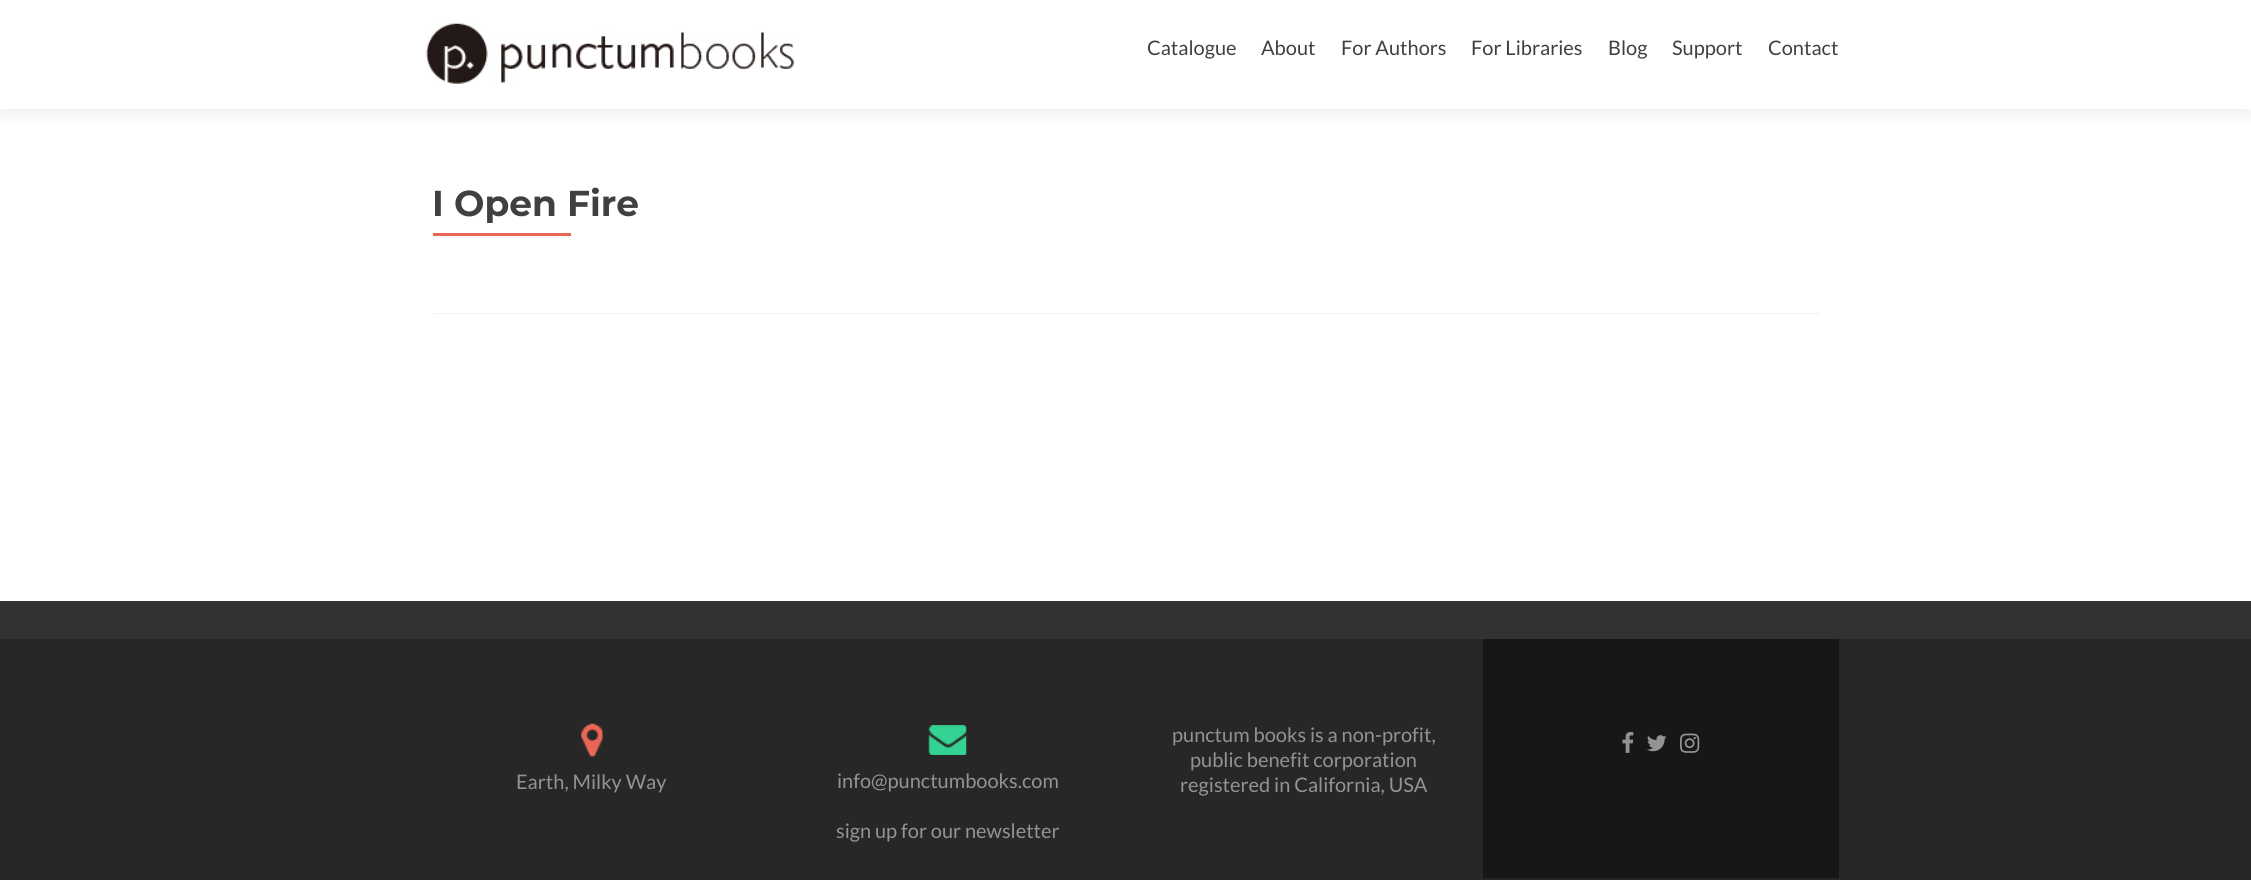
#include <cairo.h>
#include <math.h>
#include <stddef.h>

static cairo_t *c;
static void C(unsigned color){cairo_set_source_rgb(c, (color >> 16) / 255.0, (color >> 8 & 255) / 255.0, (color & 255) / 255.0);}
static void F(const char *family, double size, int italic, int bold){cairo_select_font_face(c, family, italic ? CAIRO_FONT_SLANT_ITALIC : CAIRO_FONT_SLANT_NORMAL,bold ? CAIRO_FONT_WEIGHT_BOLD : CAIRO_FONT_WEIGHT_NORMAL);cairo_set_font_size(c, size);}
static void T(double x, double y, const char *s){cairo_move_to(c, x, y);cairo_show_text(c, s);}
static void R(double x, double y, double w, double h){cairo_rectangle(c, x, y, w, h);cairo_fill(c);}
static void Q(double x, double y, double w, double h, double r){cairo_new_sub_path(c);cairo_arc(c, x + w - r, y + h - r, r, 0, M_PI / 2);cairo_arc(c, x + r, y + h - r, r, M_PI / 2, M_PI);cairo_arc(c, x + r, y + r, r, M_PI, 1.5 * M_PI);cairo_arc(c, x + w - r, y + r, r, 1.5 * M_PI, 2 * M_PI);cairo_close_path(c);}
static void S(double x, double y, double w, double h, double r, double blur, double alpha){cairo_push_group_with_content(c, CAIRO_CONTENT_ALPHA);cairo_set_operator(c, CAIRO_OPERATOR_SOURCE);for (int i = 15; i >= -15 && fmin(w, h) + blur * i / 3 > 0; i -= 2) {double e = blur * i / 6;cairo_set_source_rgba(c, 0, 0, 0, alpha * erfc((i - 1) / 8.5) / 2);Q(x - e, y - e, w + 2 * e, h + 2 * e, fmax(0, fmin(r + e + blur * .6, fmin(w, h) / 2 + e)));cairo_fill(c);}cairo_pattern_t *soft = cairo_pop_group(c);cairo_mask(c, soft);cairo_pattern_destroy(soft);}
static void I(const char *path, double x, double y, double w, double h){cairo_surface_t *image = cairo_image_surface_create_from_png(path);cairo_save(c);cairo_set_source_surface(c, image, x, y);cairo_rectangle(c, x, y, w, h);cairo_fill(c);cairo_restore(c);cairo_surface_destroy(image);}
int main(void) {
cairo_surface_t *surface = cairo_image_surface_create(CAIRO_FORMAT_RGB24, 2251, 880);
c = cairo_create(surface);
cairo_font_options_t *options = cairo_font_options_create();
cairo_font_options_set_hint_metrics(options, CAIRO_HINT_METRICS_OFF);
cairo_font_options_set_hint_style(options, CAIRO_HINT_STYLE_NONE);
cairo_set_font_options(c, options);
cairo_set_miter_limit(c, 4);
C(0xffffff);
cairo_paint(c);
C(0x323232);
S(0,6,2251,109,0,7,.08);
C(0xffffff);
R(0,0,2251,109);
I("1.png",426,23,368,61);
F("Lato",20,0,0);
C(0x404040);
T(1147,55,"Catalogue");
T(1261,55,"About");
T(1341,55,"For Authors");
T(1471,55,"For Libraries");
T(1608,55,"Blog");
T(1672,55,"Support");
T(1768,55,"Contact");
C(0xf2f2f2);
R(433,313,1387,1);
F("Montserrat Thin",36,0,0);
C(0x404040);
T(432,216,"I Open Fire");
C(0xe96656);
R(433,233,138,3);
C(0x272727);
R(0,639,2251,241);
C(0x323232);
R(0,601,2251,38);
F("Lato",20,0,0);
C(0x939393);
T(1172,742,"punctum books is a non-profit,");
T(1190,767,"public benefit corporation");
T(1180,792,"registered in California, USA");
C(0x171717);
R(1483,639,356,239);
I("2.png",1622,732,12,21);
I("3.png",1647,735,20,17);
I("4.png",1680,733,20,20);
I("5.png",581,723,22,34);
C(0x939393);
T(516,789,"Earth, Milky Way");
I("6.png",928,725,39,30);
T(837,788,"info@punctumbooks.com");
T(836,838,"sign up for our newsletter");
cairo_surface_write_to_png(surface, "o.png");
cairo_font_options_destroy(options);
cairo_destroy(c);
cairo_surface_destroy(surface);
return 0;
}
